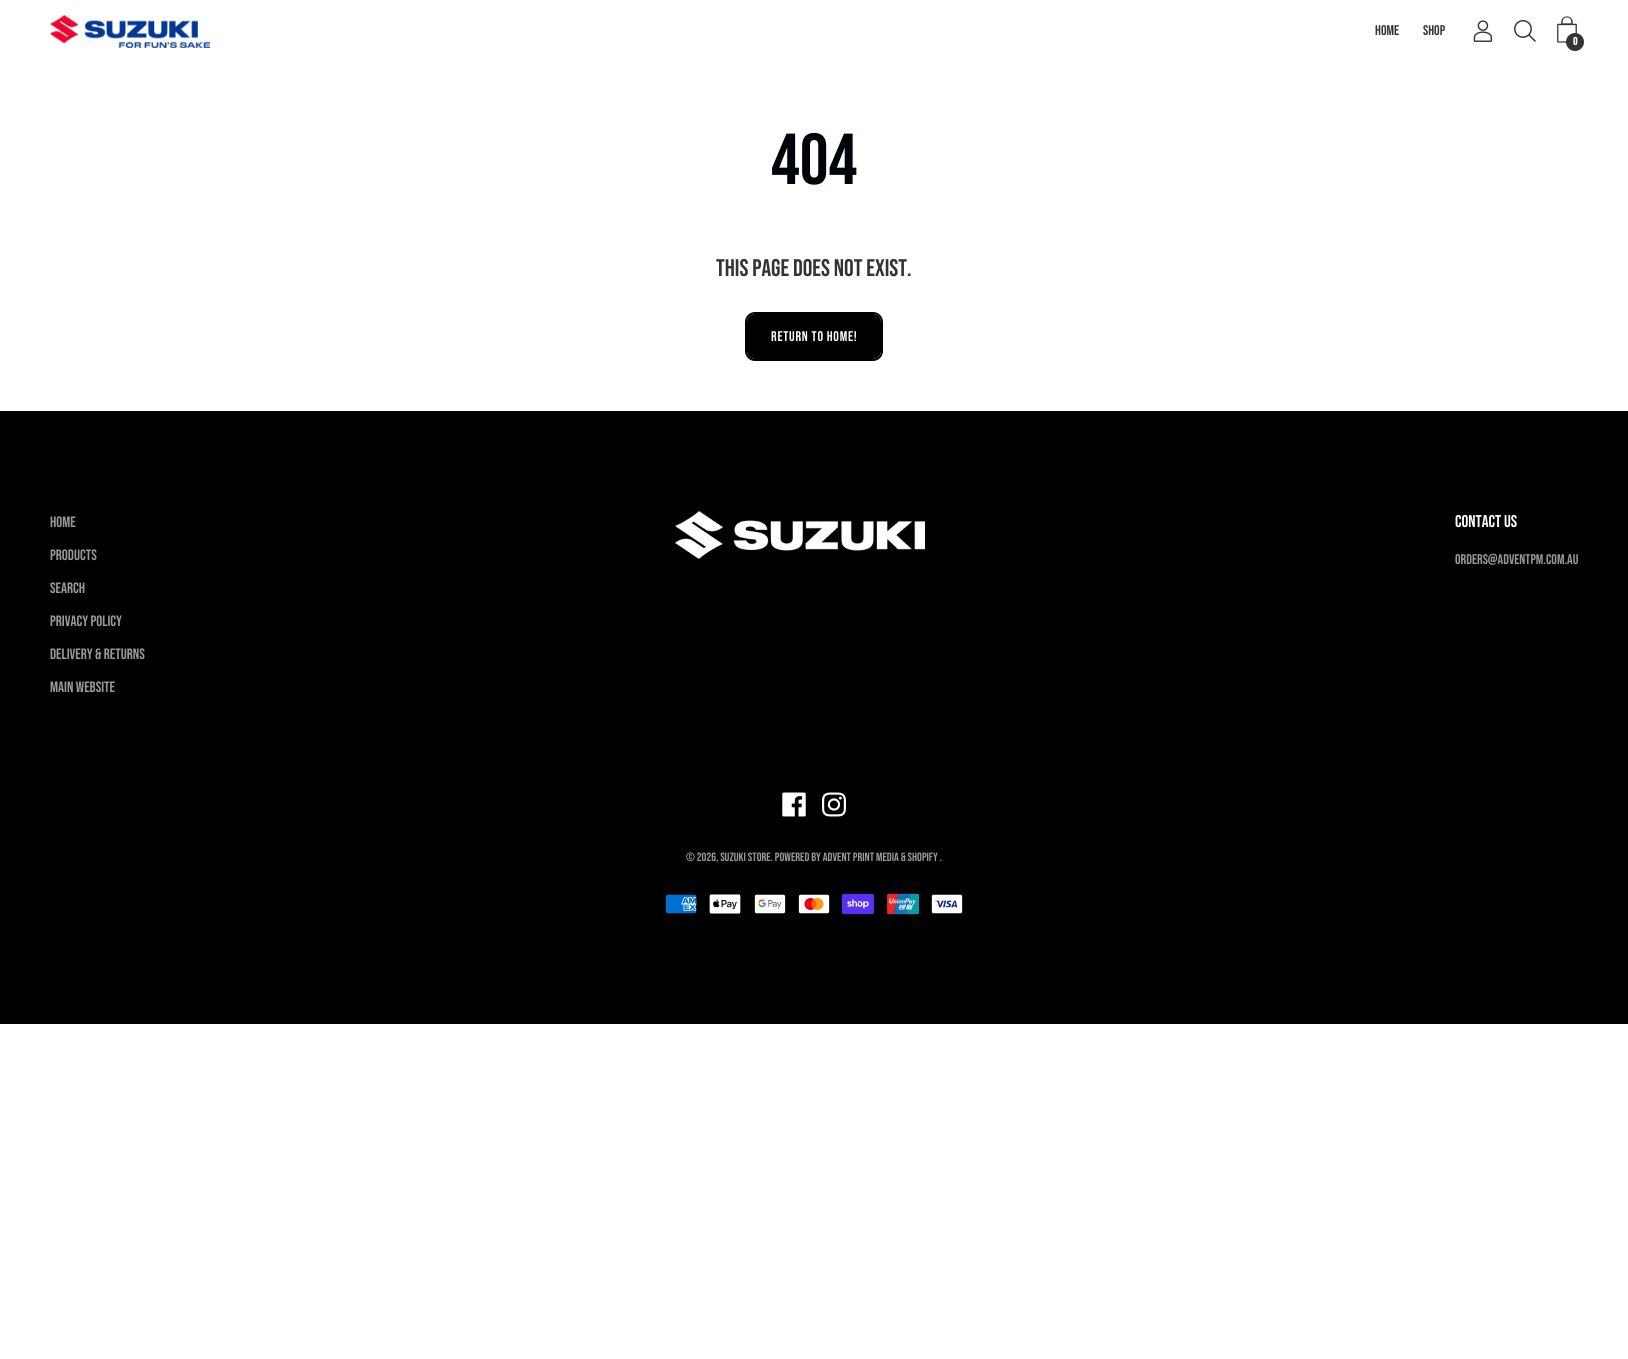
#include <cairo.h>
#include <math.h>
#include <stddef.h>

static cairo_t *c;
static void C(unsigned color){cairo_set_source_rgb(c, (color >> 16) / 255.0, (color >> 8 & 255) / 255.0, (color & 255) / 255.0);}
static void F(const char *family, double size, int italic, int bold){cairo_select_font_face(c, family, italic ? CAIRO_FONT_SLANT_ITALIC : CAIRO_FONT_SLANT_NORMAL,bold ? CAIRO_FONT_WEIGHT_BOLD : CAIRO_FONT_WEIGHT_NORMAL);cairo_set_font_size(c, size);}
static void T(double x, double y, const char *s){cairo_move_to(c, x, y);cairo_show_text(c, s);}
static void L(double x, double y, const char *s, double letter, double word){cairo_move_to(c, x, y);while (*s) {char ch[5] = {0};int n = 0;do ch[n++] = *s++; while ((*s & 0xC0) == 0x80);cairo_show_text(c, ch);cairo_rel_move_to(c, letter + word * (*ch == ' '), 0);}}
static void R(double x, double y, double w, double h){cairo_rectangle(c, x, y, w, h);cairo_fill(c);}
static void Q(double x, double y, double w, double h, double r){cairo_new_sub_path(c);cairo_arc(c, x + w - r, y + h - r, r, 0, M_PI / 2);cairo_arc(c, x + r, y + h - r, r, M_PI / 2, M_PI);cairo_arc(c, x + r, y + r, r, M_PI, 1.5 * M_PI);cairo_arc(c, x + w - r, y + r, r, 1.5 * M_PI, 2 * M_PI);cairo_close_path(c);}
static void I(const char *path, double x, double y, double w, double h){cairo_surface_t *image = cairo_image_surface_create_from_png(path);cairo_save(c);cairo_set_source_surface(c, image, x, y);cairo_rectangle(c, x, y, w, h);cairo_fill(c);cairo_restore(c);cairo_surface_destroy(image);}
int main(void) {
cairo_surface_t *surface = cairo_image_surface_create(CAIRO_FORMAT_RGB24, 1628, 1359);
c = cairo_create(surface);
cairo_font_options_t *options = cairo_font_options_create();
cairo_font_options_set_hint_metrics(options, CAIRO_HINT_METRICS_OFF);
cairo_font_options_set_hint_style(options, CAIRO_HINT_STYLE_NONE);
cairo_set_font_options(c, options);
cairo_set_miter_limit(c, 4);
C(0xffffff);
cairo_paint(c);
I("1.png",50,15,160,33);
F("Bebas Neue",14,0,0);
C(0x333333);
T(1375,35,"Home");
T(1423,35,"Shop");
I("2.png",1473,20,20,22);
I("3.png",1514,20,22,22);
I("4.png",1557,16,20,27);
cairo_arc(c,1575,42,9,0,2 * M_PI);
cairo_fill(c);
F("Bebas Neue",11,0,1);
C(0xffffff);
T(1573,45,"0");
F("Bebas Neue",72,0,0);
C(0x00040a);
T(771,184,"404");
F("Bebas Neue",24,0,0);
C(0x333333);
T(716,276,"This page does not exist.");
Q(746,313,136,47,9);
C(0x000000);
cairo_stroke(c);
Q(747,314,134,45,8);
cairo_fill(c);
F("Bebas Neue",14,0,0);
C(0xffffff);
L(771,341,"RETURN TO HOME!",.75,0);
C(0x000000);
R(0,411,1628,613);
F("Bebas Neue",15,0,0);
C(0x999999);
T(50,527,"Home");
T(50,560,"Products");
T(50,593,"Search");
T(50,626,"Privacy Policy");
T(50,659,"Delivery & Returns");
T(50,692,"Main Website");
I("5.png",675,511,250,48);
F("Bebas Neue",17,0,0);
C(0xffffff);
T(1455,527,"contact us");
F("Bebas Neue",14,0,0);
C(0x999999);
T(1455,564,"Orders@adventpm.com.au");
I("6.png",782,792,24,25);
I("7.png",822,792,24,25);
F("Bebas Neue",12,0,0);
T(686,861,"© 2026, Suzuki Store. Powered by Advent Print Media & Shopify .");
I("8.png",665,894,32,20);
I("9.png",709,894,32,20);
I("10.png",754,894,32,20);
I("11.png",798,894,32,20);
I("12.png",842,893,32,22);
I("13.png",887,893,32,22);
I("14.png",931,894,32,20);
cairo_surface_write_to_png(surface, "o.png");
cairo_font_options_destroy(options);
cairo_destroy(c);
cairo_surface_destroy(surface);
return 0;
}
